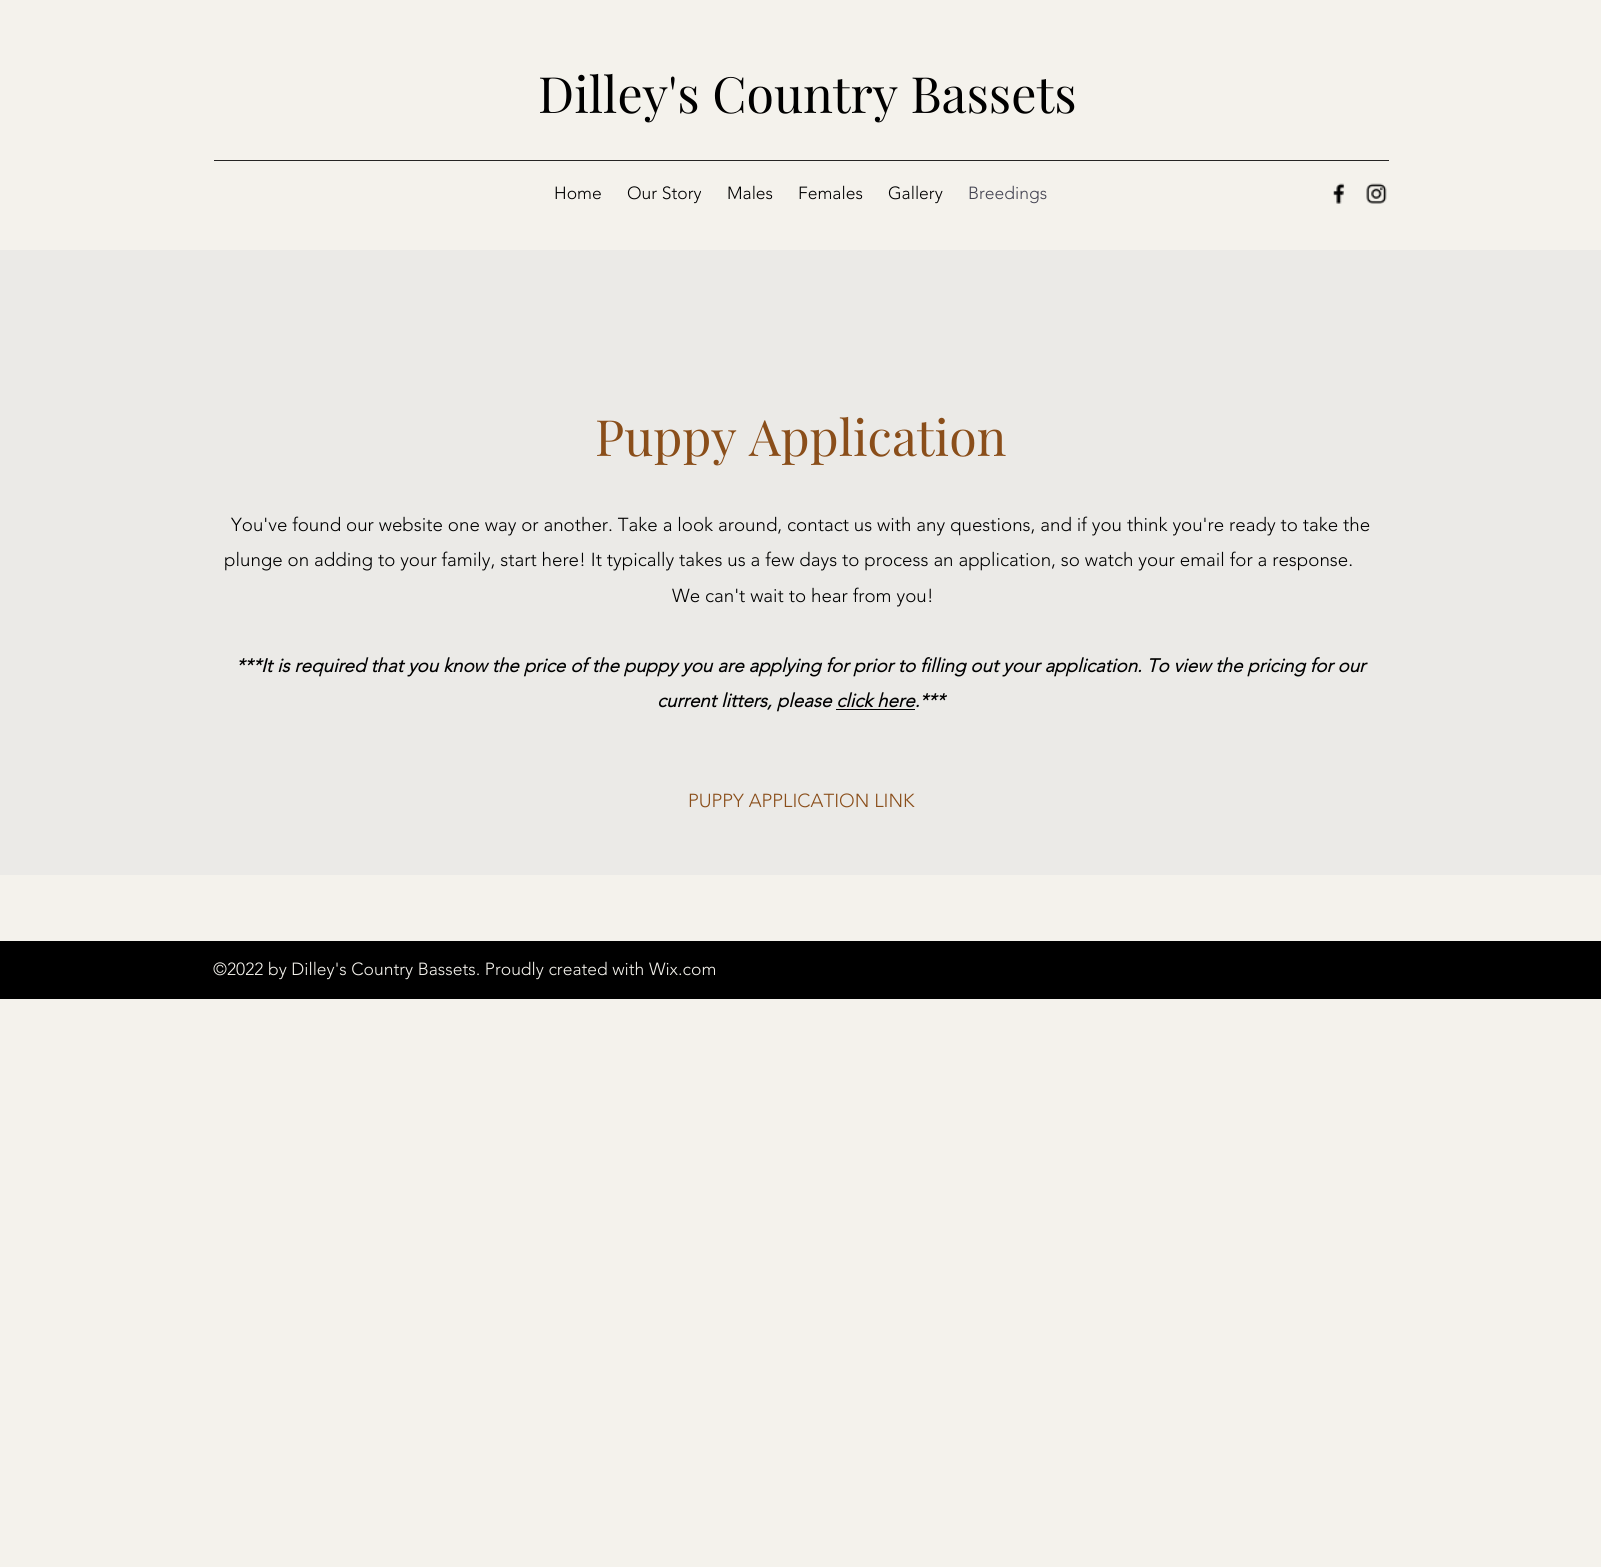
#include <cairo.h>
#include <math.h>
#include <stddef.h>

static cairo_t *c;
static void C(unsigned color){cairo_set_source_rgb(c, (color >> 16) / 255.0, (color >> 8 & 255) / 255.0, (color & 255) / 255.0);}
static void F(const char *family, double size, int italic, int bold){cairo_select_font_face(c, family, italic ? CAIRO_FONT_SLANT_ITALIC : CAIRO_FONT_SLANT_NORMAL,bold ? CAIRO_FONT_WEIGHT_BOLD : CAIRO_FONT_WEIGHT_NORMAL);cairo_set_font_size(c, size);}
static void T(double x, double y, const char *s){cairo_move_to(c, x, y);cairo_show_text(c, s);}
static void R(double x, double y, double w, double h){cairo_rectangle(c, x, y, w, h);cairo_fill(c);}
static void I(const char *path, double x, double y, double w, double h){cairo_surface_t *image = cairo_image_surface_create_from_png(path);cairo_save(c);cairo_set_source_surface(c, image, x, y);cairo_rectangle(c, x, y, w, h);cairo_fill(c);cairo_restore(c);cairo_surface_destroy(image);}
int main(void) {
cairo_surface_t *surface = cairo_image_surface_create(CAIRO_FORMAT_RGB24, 1601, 1567);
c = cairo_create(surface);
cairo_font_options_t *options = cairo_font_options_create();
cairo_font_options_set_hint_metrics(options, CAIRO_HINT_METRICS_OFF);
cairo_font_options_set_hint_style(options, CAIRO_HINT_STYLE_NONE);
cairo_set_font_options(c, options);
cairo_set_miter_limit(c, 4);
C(0xf4f2ec);
cairo_paint(c);
F("Playfair Display",50,0,0);
C(0x000000);
T(538,113,"Dilley's Country Bassets");
C(0x252423);
R(214,160,1175,1);
F("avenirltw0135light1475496 Light",17.5,0,0);
C(0x000000);
T(554,199,"Home");
T(627,199,"Our Story");
T(727,199,"Males");
T(798,199,"Females");
T(888,199,"Gallery");
C(0x434351);
T(968,199,"Breedings");
I("1.png",1333,183,12,21);
I("2.png",1366,183,21,21);
C(0xebeae7);
R(0,250,1601,625);
F("Playfair Display",50,0,0);
C(0x8a4e1a);
T(595,456,"Puppy Application");
F("avenirltw0135light1475496 Light",18.75,0,0);
C(0x000000);
T(231,531,"You've found our website one way or another. Take a look around, contact us with any questions, and if you think you're ready to take the");
T(224,566,"plunge on adding to your family, start here! It typically takes us a few days to process an application, so watch your email for a response.");
T(672,602,"We can't wait to hear from you!");
F("avenirltw0135light1475496",18.75,1,1);
T(236,672,"***It is required that you know the price of the puppy you are applying for prior to filling out your application. To view the pricing for our");
T(657,707,"current litters, please click here.***");
R(836,709,79,1);
F("avenirltw0135light1475496 Light",18.75,0,0);
C(0x8a4e1a);
T(688,807,"PUPPY APPLICATION LINK");
C(0x000000);
R(0,941,1601,58);
F("avenirltw0135light1475496 Light",17.5,0,0);
C(0xf4f2ec);
T(213,975,"©2022 by Dilley's Country Bassets. Proudly created with Wix.com");
cairo_surface_write_to_png(surface, "o.png");
cairo_font_options_destroy(options);
cairo_destroy(c);
cairo_surface_destroy(surface);
return 0;
}
